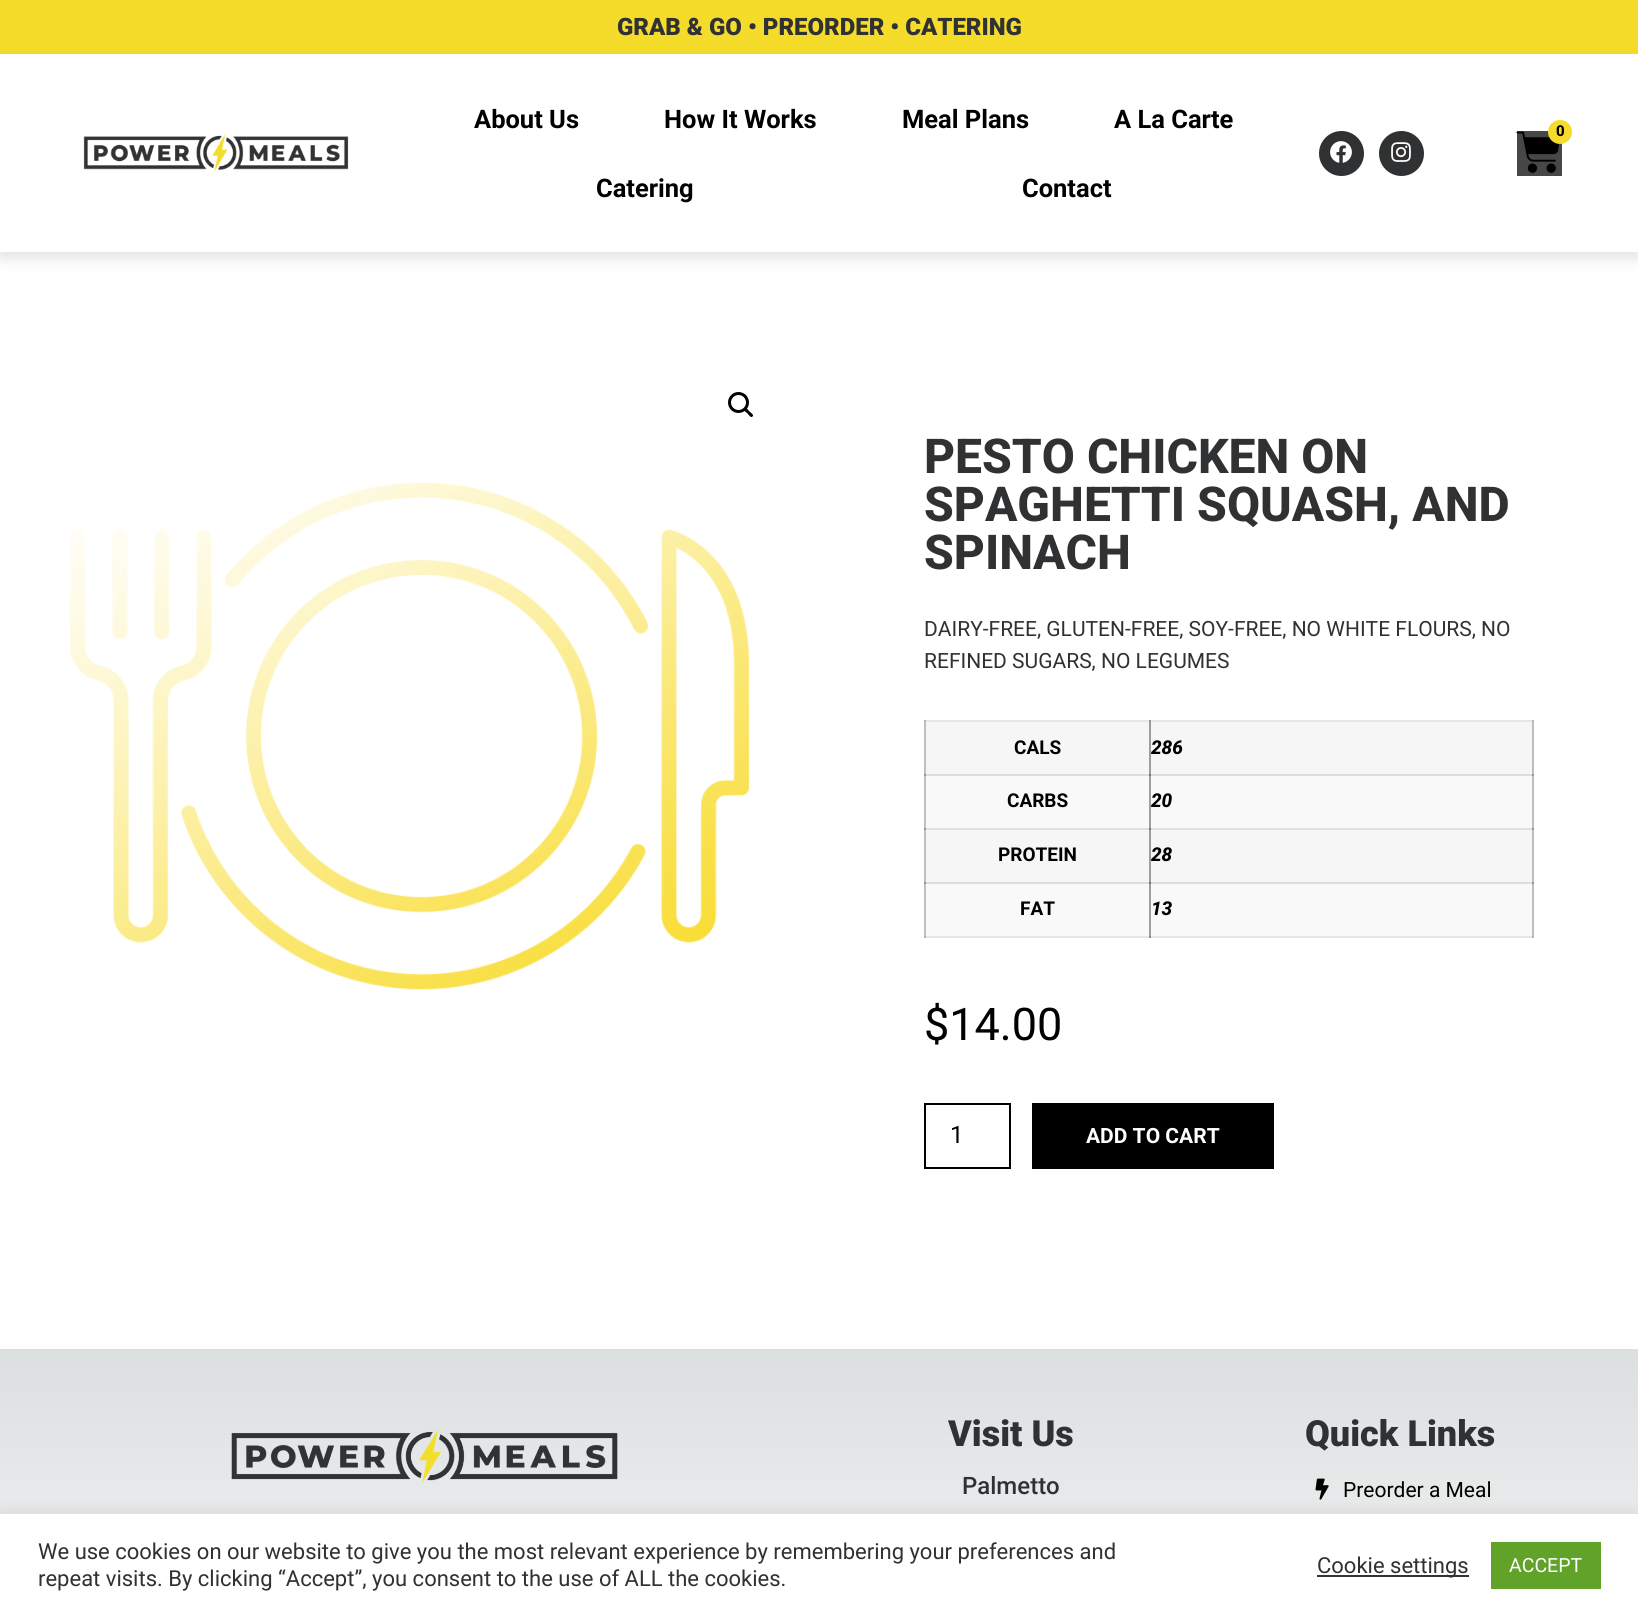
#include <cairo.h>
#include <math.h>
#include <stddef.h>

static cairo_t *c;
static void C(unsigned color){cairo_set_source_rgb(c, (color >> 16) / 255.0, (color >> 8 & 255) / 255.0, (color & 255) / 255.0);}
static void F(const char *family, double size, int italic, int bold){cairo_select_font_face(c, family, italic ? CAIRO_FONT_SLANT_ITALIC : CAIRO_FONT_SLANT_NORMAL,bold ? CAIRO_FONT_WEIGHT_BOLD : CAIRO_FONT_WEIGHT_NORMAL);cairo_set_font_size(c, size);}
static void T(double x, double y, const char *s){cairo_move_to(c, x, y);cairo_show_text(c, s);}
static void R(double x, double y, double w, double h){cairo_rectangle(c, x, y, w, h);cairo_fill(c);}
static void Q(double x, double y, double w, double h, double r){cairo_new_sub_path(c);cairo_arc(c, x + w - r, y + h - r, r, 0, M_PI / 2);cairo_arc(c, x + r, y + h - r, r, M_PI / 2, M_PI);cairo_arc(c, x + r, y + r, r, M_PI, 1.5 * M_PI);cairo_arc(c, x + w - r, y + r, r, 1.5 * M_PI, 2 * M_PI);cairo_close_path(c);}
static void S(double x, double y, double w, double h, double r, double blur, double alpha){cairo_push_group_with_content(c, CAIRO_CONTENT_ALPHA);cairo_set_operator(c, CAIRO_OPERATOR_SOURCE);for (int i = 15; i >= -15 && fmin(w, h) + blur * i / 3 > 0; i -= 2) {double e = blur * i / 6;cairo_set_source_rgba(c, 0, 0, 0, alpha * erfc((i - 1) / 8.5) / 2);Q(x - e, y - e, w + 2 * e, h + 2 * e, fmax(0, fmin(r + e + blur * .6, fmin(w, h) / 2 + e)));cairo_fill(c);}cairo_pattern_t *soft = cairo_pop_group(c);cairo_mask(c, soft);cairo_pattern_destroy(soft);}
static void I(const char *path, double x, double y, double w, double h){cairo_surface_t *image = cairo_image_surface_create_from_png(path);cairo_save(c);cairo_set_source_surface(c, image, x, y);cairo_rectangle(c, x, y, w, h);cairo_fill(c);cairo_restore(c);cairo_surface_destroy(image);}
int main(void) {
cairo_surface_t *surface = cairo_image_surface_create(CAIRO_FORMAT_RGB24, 1638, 1616);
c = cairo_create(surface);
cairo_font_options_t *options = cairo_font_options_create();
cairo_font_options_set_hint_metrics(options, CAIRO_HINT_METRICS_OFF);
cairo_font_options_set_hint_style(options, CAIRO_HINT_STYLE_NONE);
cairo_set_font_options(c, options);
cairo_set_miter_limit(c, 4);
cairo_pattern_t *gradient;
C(0xffffff);
cairo_paint(c);
C(0xc0c0c0);
R(924,720,2,218);
R(1533,720,1,218);
C(0x979797);
R(924,774,2,2);
C(0xa0a0a0);
R(1532,774,2,2);
C(0x979797);
R(924,828,2,2);
C(0xa0a0a0);
R(1532,828,2,2);
C(0x979797);
R(924,882,2,2);
C(0xe6e6e6);
R(924,936,609,2);
C(0xb3b3b3);
R(924,936,2,2);
C(0x8b8b8b);
R(1149,936,2,2);
C(0xa0a0a0);
R(1532,882,2,2);
C(0xadadad);
R(1532,936,1,2);
C(0xf5dc2a);
R(0,0,1638,54);
F("Roboto Black",24,0,0);
C(0x303133);
T(617,35,"GRAB & GO • PREORDER • CATERING");
cairo_save(c);
cairo_set_fill_rule(c,CAIRO_FILL_RULE_EVEN_ODD);
cairo_new_path(c);
cairo_move_to(c,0,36);
cairo_line_to(c,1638,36);
cairo_line_to(c,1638,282);
cairo_line_to(c,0,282);
cairo_close_path(c);
cairo_move_to(c,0,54);
cairo_line_to(c,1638,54);
cairo_line_to(c,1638,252);
cairo_line_to(c,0,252);
cairo_close_path(c);
cairo_clip(c);
C(0x000000);
S(0,60,1638,198,0,7.5,.12);
cairo_restore(c);
F("Roboto",25.5,0,1);
C(0x000000);
T(474,128,"About Us");
T(664,128,"How It Works");
T(902,128,"Meal Plans");
T(1114,128,"A La Carte");
T(596,197,"Catering");
T(1022,197,"Contact");
C(0x303133);
cairo_new_path(c);
cairo_arc(c,1341.5,153.5,22.5,0,2 * M_PI);
cairo_fill(c);
I("1.png",1330,141,22,22);
cairo_arc(c,1401.5,153.5,22.5,0,2 * M_PI);
cairo_fill(c);
I("2.png",1391,142,20,20);
C(0x474747);
R(1517,131,45,45);
I("3.png",1516,131,43,42);
C(0xf5dc2a);
cairo_arc(c,1560,132,12,0,2 * M_PI);
cairo_fill(c);
F("Roboto ExtraBold",15,0,0);
C(0x000000);
T(1556,136,"0");
I("4.png",83,134,266,38);
cairo_arc(c,738.5,402.5,9,0,2 * M_PI);
cairo_set_line_width(c,3);
cairo_stroke(c);
cairo_new_path(c);
cairo_move_to(c,744.5,408.5);
cairo_curve_to(c,746,406.5,748.5,410.5,749.5,411.5);
cairo_curve_to(c,750.5,412.5,754.5,415,752.5,416.5);
cairo_curve_to(c,751,418.5,748.5,414.5,747.5,413.5);
cairo_curve_to(c,746.5,412.5,742.5,410,744.5,408.5);
cairo_close_path(c);
cairo_fill(c);
I("5.png",70,482,679,508);
F("Roboto ExtraBold",48,0,0);
C(0x303133);
T(924,473,"PESTO CHICKEN ON");
T(924,521,"SPAGHETTI SQUASH, AND");
T(924,569,"SPINACH");
F("Roboto",21,0,0);
T(924,636,"DAIRY-FREE, GLUTEN-FREE, SOY-FREE, NO WHITE FLOURS, NO");
T(924,668,"REFINED SUGARS, NO LEGUMES");
C(0xe6e6e6);
R(924,720,609,2);
C(0xb3b3b3);
R(924,720,2,2);
C(0x9a9a9a);
R(1149,720,2,2);
C(0xb3b3b3);
R(1532,720,1,2);
C(0xf6f6f6);
R(926,722,223,52);
C(0xdddddd);
R(926,774,607,2);
C(0x9e9e9e);
R(1149,722,2,54);
C(0x777777);
R(1149,774,2,2);
F("Roboto",19,0,1);
C(0x000000);
T(1014,754,"CALS");
C(0xf6f6f6);
R(1151,722,381,52);
C(0xbbbbbb);
R(1532,722,1,54);
C(0x8e8e8e);
R(1532,774,1,2);
F("Roboto ExtraBold",19,1,0);
C(0x000000);
T(1151,754,"286");
C(0xf9f9f9);
R(926,776,223,52);
C(0xe0e0e0);
R(926,828,607,2);
C(0x9f9f9f);
R(1149,776,2,54);
C(0x777777);
R(1149,828,2,2);
F("Roboto",19,0,1);
C(0x000000);
T(1007,807,"CARBS");
C(0xf9f9f9);
R(1151,776,381,52);
C(0xbdbdbd);
R(1532,776,1,54);
C(0x8f8f8f);
R(1532,828,1,2);
F("Roboto ExtraBold",19,1,0);
C(0x000000);
T(1151,807,"20");
C(0xf6f6f6);
R(926,830,223,52);
C(0xdddddd);
R(926,882,607,2);
C(0x9e9e9e);
R(1149,830,2,54);
C(0x777777);
R(1149,882,2,2);
F("Roboto",19,0,1);
C(0x000000);
T(998,861,"PROTEIN");
C(0xf6f6f6);
R(1151,830,381,52);
C(0xbbbbbb);
R(1532,830,1,54);
C(0x8e8e8e);
R(1532,882,1,2);
F("Roboto ExtraBold",19,1,0);
C(0x000000);
T(1151,861,"28");
C(0xf9f9f9);
R(926,884,223,52);
C(0x9f9f9f);
R(1149,884,2,52);
F("Roboto",19,0,1);
C(0x000000);
T(1020,915,"FAT");
C(0xf9f9f9);
R(1151,884,381,52);
C(0xbdbdbd);
R(1532,884,1,52);
F("Roboto ExtraBold",19,1,0);
C(0x000000);
T(1151,915,"13");
F("Roboto",45,0,0);
T(924,1040,"$14.00");
cairo_rectangle(c,925,1104,85,64);
cairo_set_line_width(c,2);
cairo_stroke(c);
F("Roboto",24,0,0);
T(950,1143,"1");
R(1032,1103,242,66);
F("Roboto",21,0,1);
C(0xffffff);
T(1086,1143,"ADD TO CART");
gradient = cairo_pattern_create_linear(819,1349,819,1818);
cairo_pattern_add_color_stop_rgba(gradient,0,0.863,0.875,0.878,1);
cairo_pattern_add_color_stop_rgba(gradient,1,1,1,1,1);
cairo_set_source(c,gradient);
cairo_pattern_destroy(gradient);
R(0,1349,1638,165);
I("6.png",231,1429,387,54);
F("Roboto Black",36,0,0);
C(0x303133);
T(948,1446,"Visit Us");
F("Roboto Medium",24,0,0);
T(962,1494,"Palmetto");
F("Roboto Black",36,0,0);
T(1305,1446,"Quick Links");
I("7.png",1315,1478,14,22);
F("Roboto",21,0,0);
C(0x000000);
T(1343,1497,"Preorder a Meal");
C(0xacabab);
S(0,1512,1638,104,0,7.5,.3);
C(0xffffff);
R(0,1514,1638,102);
F("Roboto",22,0,0);
C(0x303133);
T(38,1559,"We use cookies on our website to give you the most relevant experience by remembering your preferences and");
T(38,1586,"repeat visits. By clicking “Accept”, you consent to the use of ALL the cookies.");
C(0x333333);
R(1317,1575,152,2);
C(0x303133);
T(1317,1573,"Cookie settings");
C(0x61a229);
R(1491,1542,110,47);
F("Roboto",19.5,0,0);
C(0xffffff);
T(1509,1572,"ACCEPT");
cairo_surface_write_to_png(surface, "o.png");
cairo_font_options_destroy(options);
cairo_destroy(c);
cairo_surface_destroy(surface);
return 0;
}
